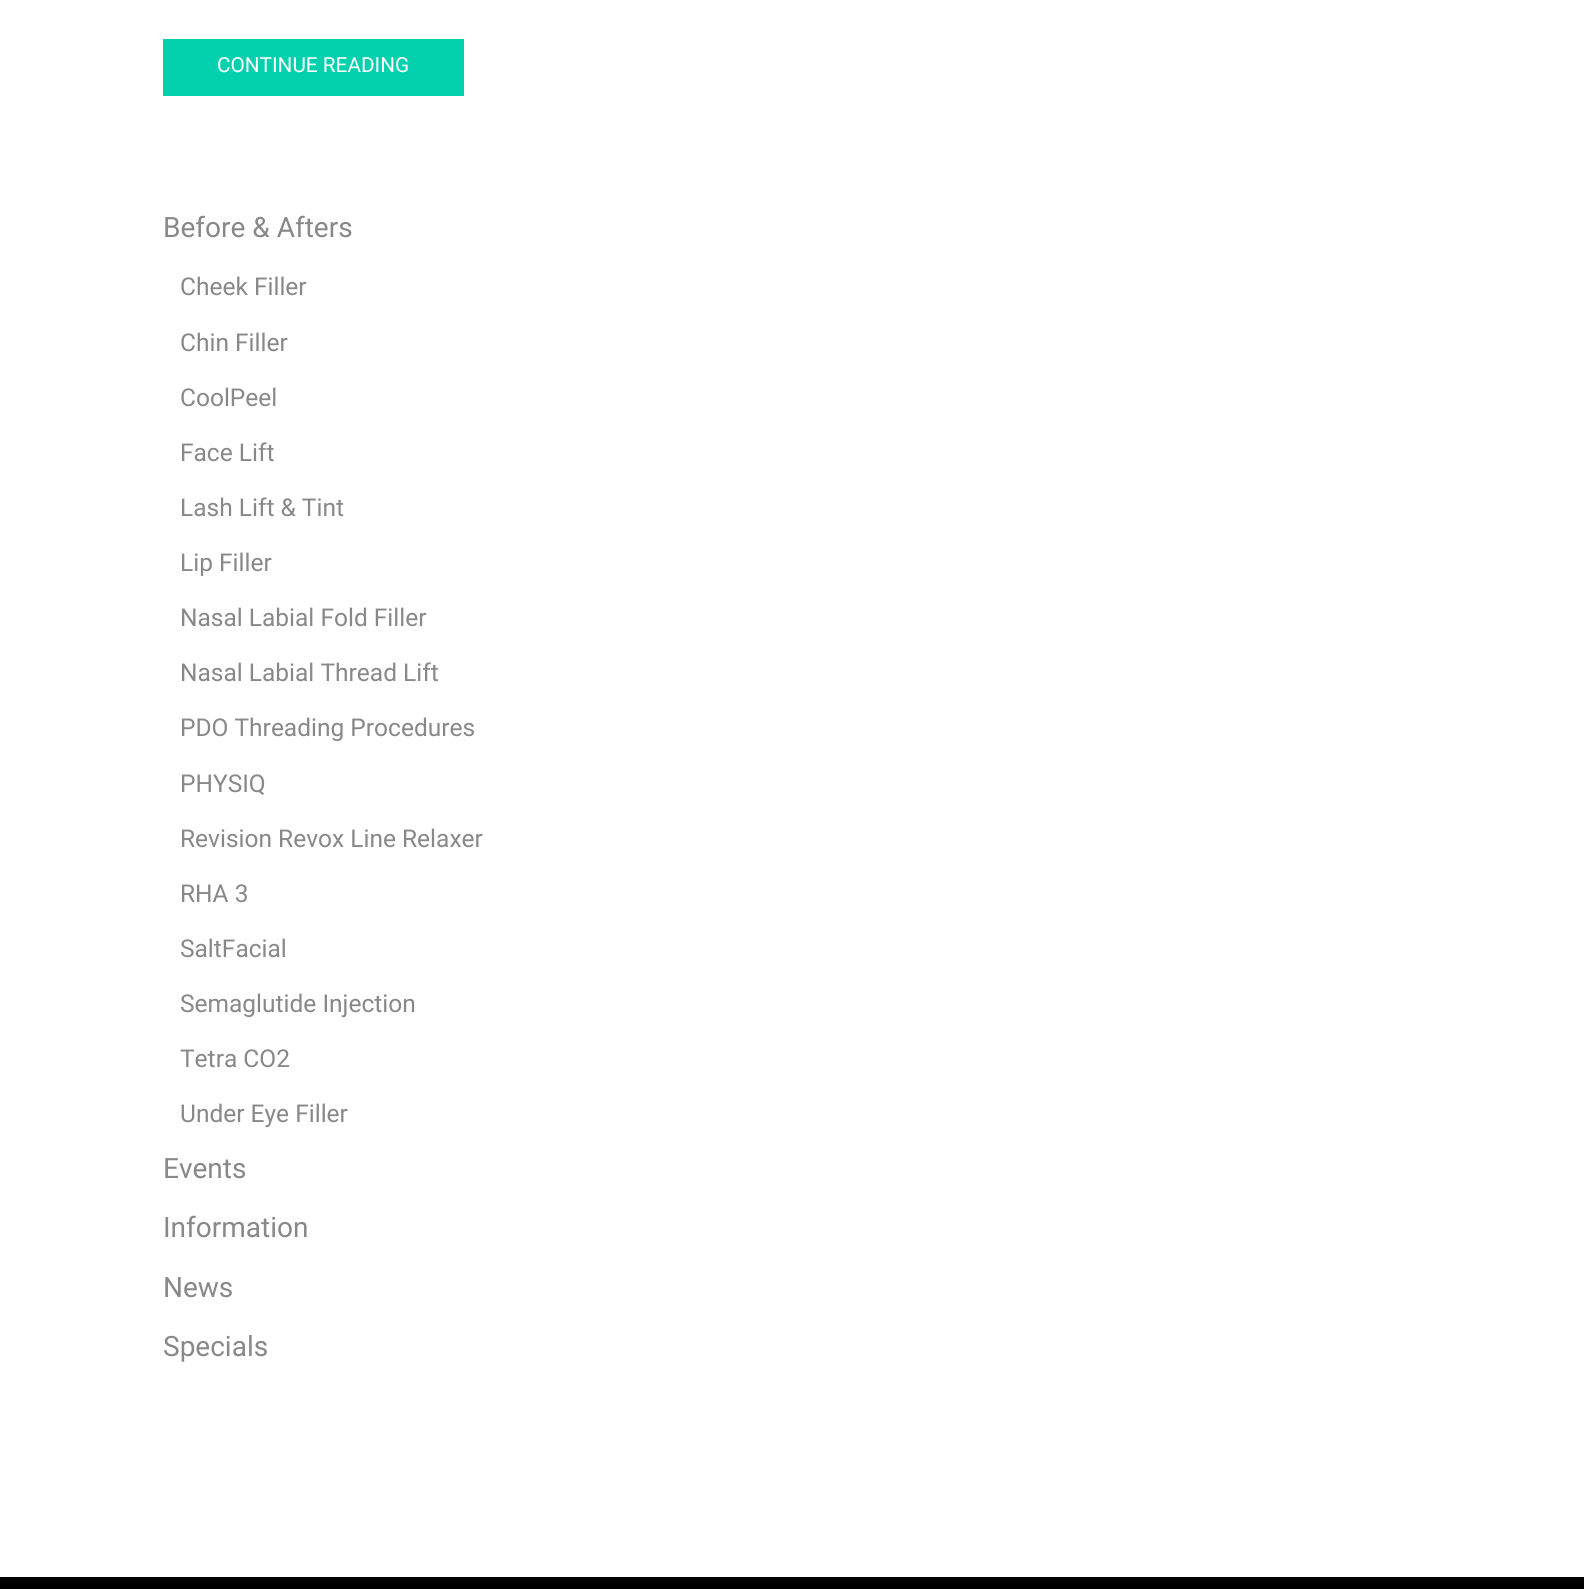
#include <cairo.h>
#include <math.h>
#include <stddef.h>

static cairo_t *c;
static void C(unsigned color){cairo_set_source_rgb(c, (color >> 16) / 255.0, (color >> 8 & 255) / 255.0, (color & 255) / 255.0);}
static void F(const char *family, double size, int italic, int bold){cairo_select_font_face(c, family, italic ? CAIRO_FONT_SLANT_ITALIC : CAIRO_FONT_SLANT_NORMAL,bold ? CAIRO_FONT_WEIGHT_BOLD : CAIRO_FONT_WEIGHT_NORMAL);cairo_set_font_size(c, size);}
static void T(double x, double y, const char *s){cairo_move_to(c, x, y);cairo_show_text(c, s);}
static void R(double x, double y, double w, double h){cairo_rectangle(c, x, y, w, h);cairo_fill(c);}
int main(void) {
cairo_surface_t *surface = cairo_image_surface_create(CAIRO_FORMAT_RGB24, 1584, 1589);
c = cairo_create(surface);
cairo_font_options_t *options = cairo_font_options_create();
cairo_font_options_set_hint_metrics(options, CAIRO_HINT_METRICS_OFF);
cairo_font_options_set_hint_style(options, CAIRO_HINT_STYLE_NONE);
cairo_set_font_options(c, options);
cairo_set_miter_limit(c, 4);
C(0xffffff);
cairo_paint(c);
C(0x03d1ae);
R(163,39,301,57);
F("Roboto",20.75,0,0);
C(0xffffff);
T(217,72,"CONTINUE READING");
F("Roboto",28,0,0);
C(0x888888);
T(163,237,"Before & Afters");
F("Roboto",24.5,0,0);
T(180,295,"Cheek Filler");
T(180,351,"Chin Filler");
T(180,406,"CoolPeel");
T(180,461,"Face Lift");
T(180,516,"Lash Lift & Tint");
T(180,571,"Lip Filler");
T(180,626,"Nasal Labial Fold Filler");
T(180,681,"Nasal Labial Thread Lift");
T(180,736,"PDO Threading Procedures");
T(180,792,"PHYSIQ");
T(180,847,"Revision Revox Line Relaxer");
T(180,902,"RHA 3");
T(180,957,"SaltFacial");
T(180,1012,"Semaglutide Injection");
T(180,1067,"Tetra CO2");
T(180,1122,"Under Eye Filler");
F("Roboto",28,0,0);
T(163,1178,"Events");
T(163,1237,"Information");
T(163,1297,"News");
T(163,1356,"Specials");
C(0x000000);
R(0,1577,1584,12);
cairo_surface_write_to_png(surface, "o.png");
cairo_font_options_destroy(options);
cairo_destroy(c);
cairo_surface_destroy(surface);
return 0;
}
